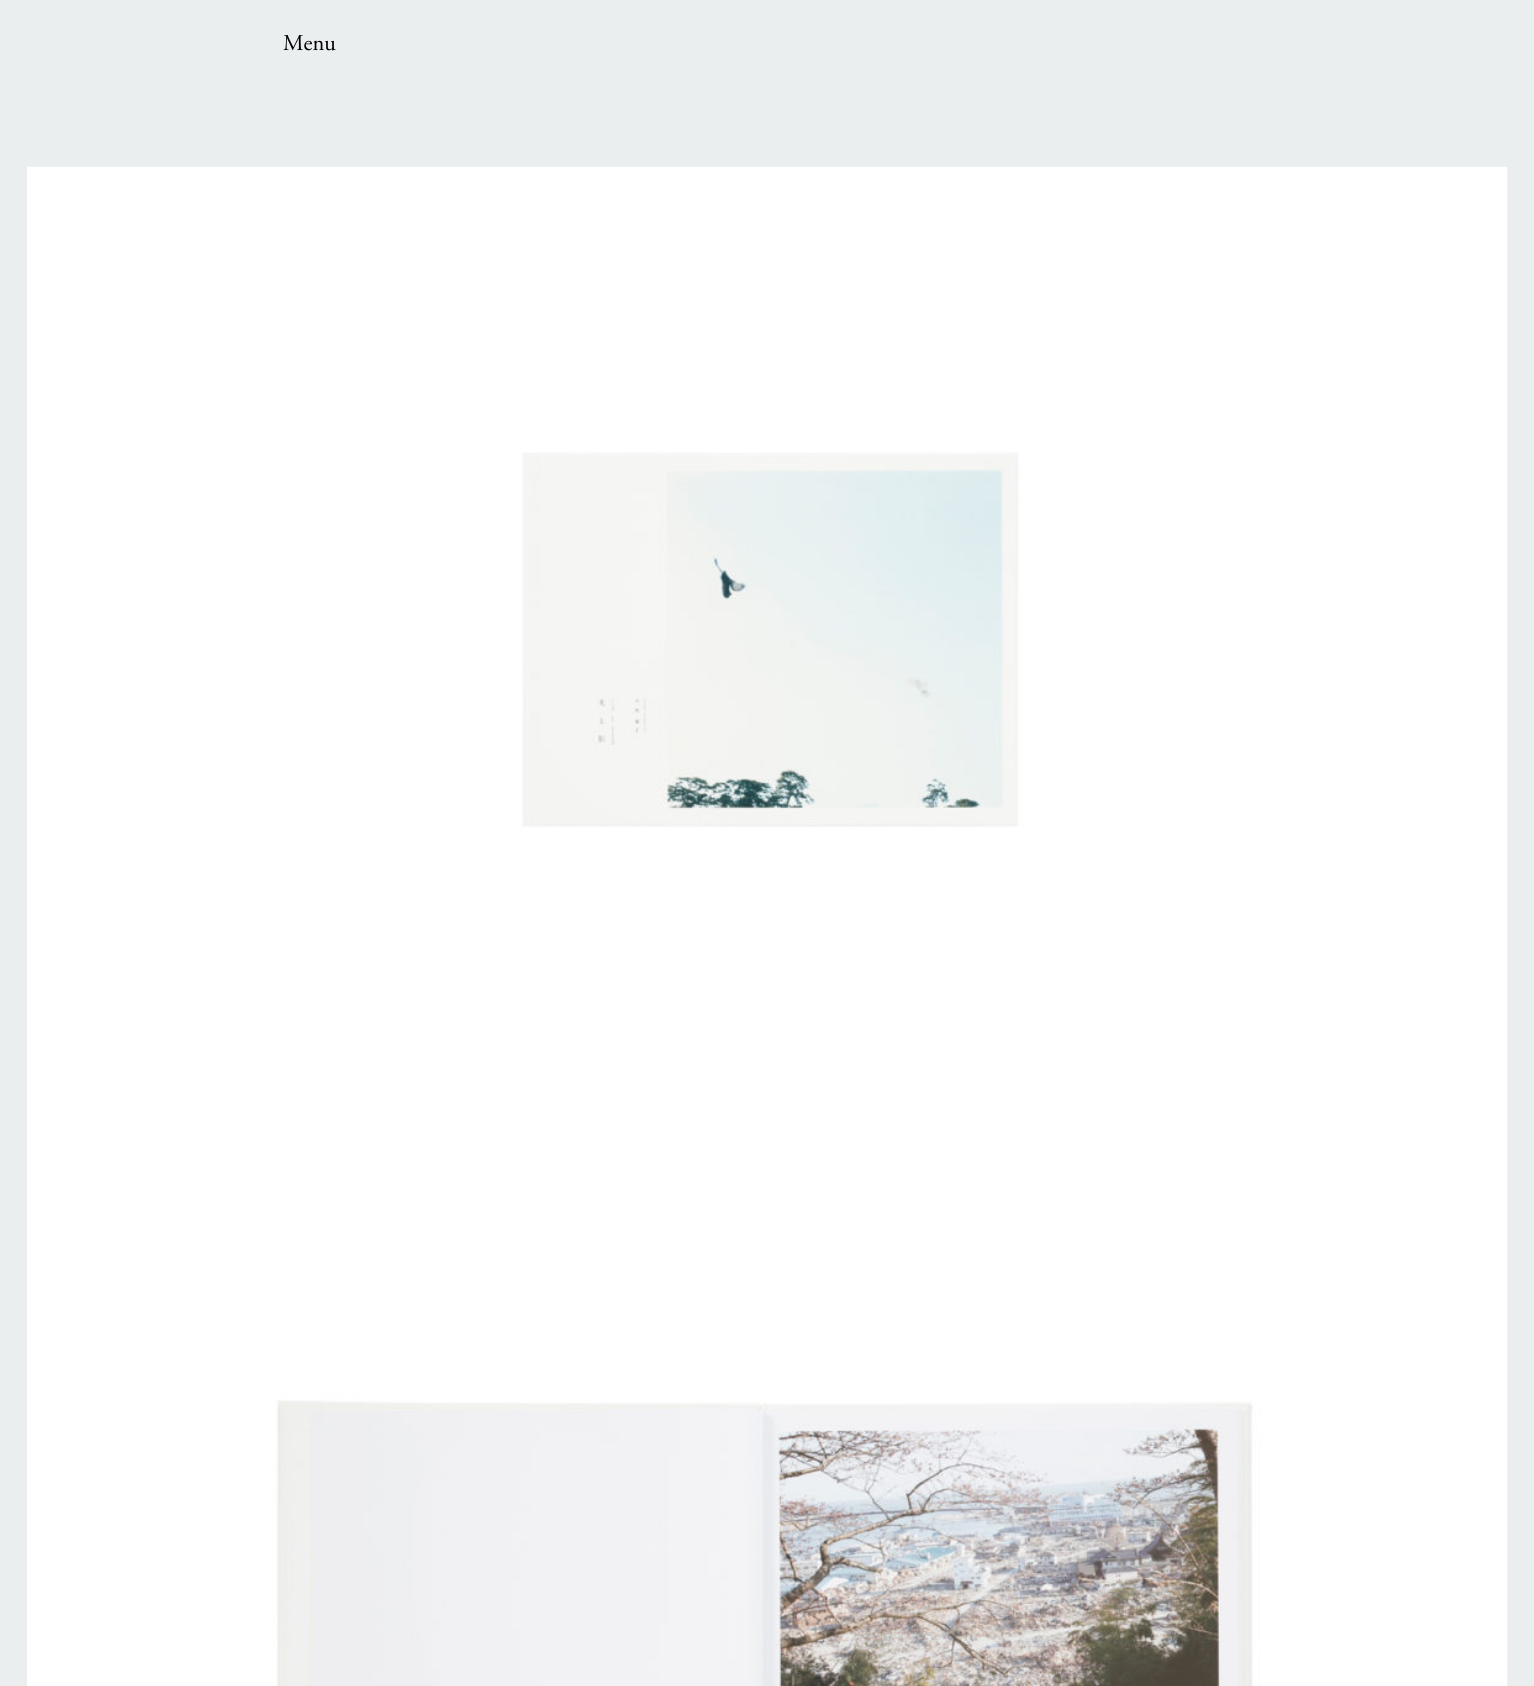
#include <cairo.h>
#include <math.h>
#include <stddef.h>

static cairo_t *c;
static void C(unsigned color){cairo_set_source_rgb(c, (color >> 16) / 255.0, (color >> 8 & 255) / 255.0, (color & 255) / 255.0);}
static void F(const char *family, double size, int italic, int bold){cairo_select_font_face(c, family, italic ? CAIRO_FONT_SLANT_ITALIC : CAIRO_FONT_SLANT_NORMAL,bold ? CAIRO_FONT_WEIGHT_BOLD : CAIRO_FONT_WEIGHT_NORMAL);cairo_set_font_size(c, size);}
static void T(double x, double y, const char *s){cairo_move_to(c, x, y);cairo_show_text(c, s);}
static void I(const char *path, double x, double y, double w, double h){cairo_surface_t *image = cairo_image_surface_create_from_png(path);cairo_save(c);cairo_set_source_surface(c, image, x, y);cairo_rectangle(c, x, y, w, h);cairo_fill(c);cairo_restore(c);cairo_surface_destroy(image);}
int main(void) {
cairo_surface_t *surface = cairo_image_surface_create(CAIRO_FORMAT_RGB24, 1534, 1686);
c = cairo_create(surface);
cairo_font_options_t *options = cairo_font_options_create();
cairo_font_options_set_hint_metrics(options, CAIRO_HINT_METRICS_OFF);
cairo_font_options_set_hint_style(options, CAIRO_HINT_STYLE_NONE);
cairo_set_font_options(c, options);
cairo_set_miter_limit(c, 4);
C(0xeaeeee);
cairo_paint(c);
F("Adobe Garamond",22.5,0,0);
C(0x000000);
T(283,50,"Menu");
I("1.png",27,166,1481,950);
I("2.png",27,1116,1481,570);
cairo_surface_write_to_png(surface, "o.png");
cairo_font_options_destroy(options);
cairo_destroy(c);
cairo_surface_destroy(surface);
return 0;
}
